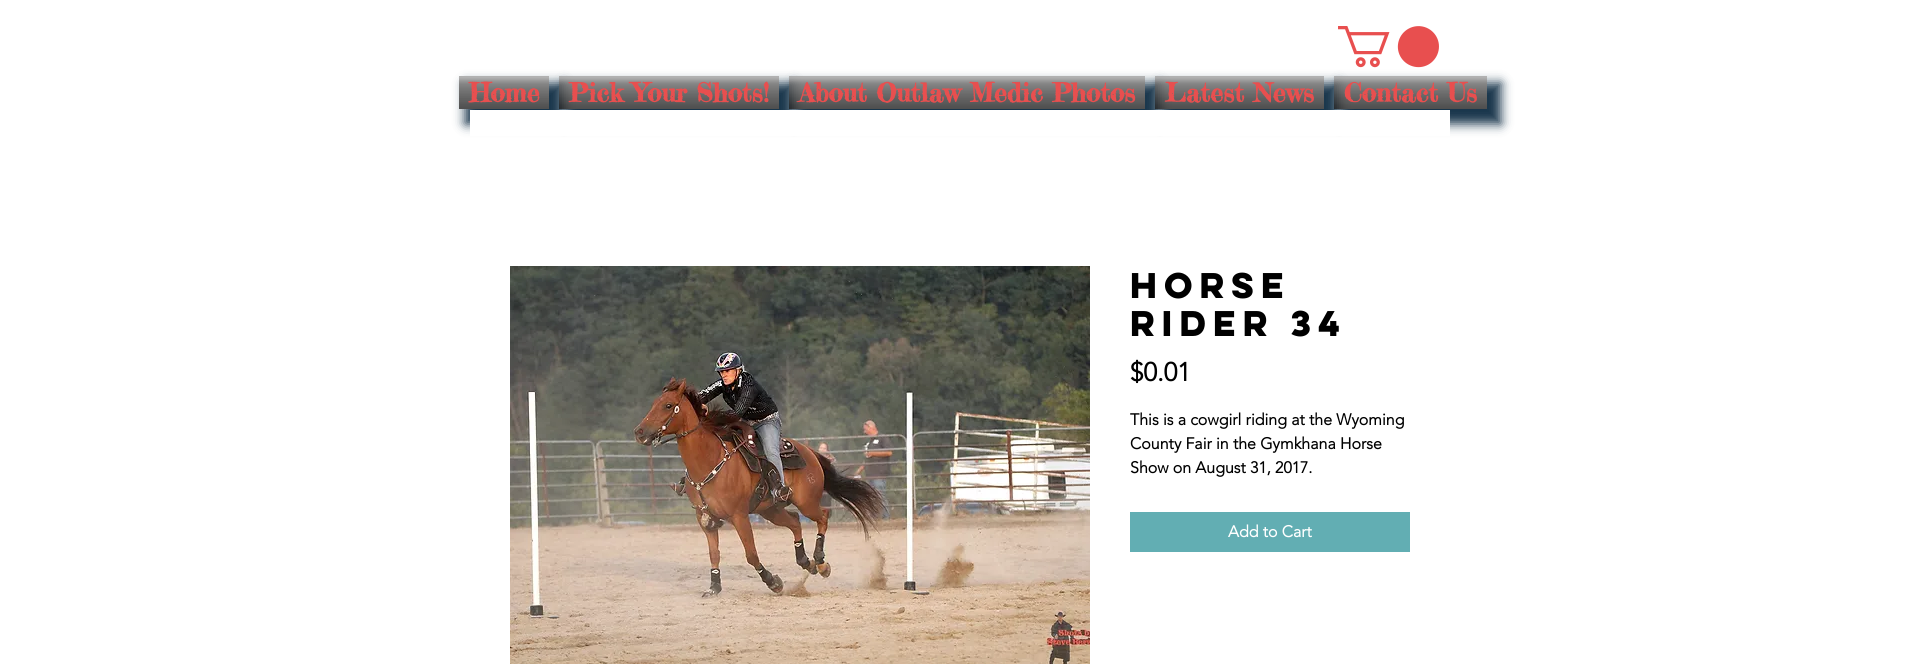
#include <cairo.h>
#include <math.h>
#include <stddef.h>

static cairo_t *c;
static void C(unsigned color){cairo_set_source_rgb(c, (color >> 16) / 255.0, (color >> 8 & 255) / 255.0, (color & 255) / 255.0);}
static void F(const char *family, double size, int italic, int bold){cairo_select_font_face(c, family, italic ? CAIRO_FONT_SLANT_ITALIC : CAIRO_FONT_SLANT_NORMAL,bold ? CAIRO_FONT_WEIGHT_BOLD : CAIRO_FONT_WEIGHT_NORMAL);cairo_set_font_size(c, size);}
static void T(double x, double y, const char *s){cairo_move_to(c, x, y);cairo_show_text(c, s);}
static void R(double x, double y, double w, double h){cairo_rectangle(c, x, y, w, h);cairo_fill(c);}
static void Q(double x, double y, double w, double h, double r){cairo_new_sub_path(c);cairo_arc(c, x + w - r, y + h - r, r, 0, M_PI / 2);cairo_arc(c, x + r, y + h - r, r, M_PI / 2, M_PI);cairo_arc(c, x + r, y + r, r, M_PI, 1.5 * M_PI);cairo_arc(c, x + w - r, y + r, r, 1.5 * M_PI, 2 * M_PI);cairo_close_path(c);}
static void S(double x, double y, double w, double h, double r, double blur, double alpha){cairo_push_group_with_content(c, CAIRO_CONTENT_ALPHA);cairo_set_operator(c, CAIRO_OPERATOR_SOURCE);for (int i = 15; i >= -15 && fmin(w, h) + blur * i / 3 > 0; i -= 2) {double e = blur * i / 6;cairo_set_source_rgba(c, 0, 0, 0, alpha * erfc((i - 1) / 8.5) / 2);Q(x - e, y - e, w + 2 * e, h + 2 * e, fmax(0, fmin(r + e + blur * .6, fmin(w, h) / 2 + e)));cairo_fill(c);}cairo_pattern_t *soft = cairo_pop_group(c);cairo_mask(c, soft);cairo_pattern_destroy(soft);}
static void I(const char *path, double x, double y, double w, double h){cairo_surface_t *image = cairo_image_surface_create_from_png(path);cairo_save(c);cairo_set_source_surface(c, image, x, y);cairo_rectangle(c, x, y, w, h);cairo_fill(c);cairo_restore(c);cairo_surface_destroy(image);}
int main(void) {
cairo_surface_t *surface = cairo_image_surface_create(CAIRO_FORMAT_RGB24, 1920, 664);
c = cairo_create(surface);
cairo_font_options_t *options = cairo_font_options_create();
cairo_font_options_set_hint_metrics(options, CAIRO_HINT_METRICS_OFF);
cairo_font_options_set_hint_style(options, CAIRO_HINT_STYLE_NONE);
cairo_set_font_options(c, options);
cairo_set_miter_limit(c, 4);
C(0xffffff);
cairo_paint(c);
I("1.png",1338,26,101,42);
C(0x02223a);
S(465,83,98,41,0,5.5,.91);
C(0x4d4d4d);
R(459,76,90,33);
I("2.png",459,76,90,33);
I("3.png",459,76,90,33);
F("Fredericka the Great",26,0,1);
C(0xe84f4f);
T(469,102,"Home");
cairo_save(c);
cairo_set_fill_rule(c,CAIRO_FILL_RULE_EVEN_ODD);
cairo_new_path(c);
cairo_move_to(c,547,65);
cairo_line_to(c,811,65);
cairo_line_to(c,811,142);
cairo_line_to(c,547,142);
cairo_close_path(c);
cairo_move_to(c,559,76);
cairo_line_to(c,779,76);
cairo_line_to(c,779,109);
cairo_line_to(c,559,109);
cairo_close_path(c);
cairo_clip(c);
C(0x02223a);
S(565,83,228,41,0,5.5,.91);
cairo_restore(c);
cairo_set_source_rgba(c,0,0,0,0.7);
R(559,76,220,33);
I("4.png",559,76,220,33);
I("5.png",559,76,220,33);
C(0xe84f4f);
T(569,102,"Pick Your Shots!");
cairo_save(c);
cairo_set_fill_rule(c,CAIRO_FILL_RULE_EVEN_ODD);
cairo_new_path(c);
cairo_move_to(c,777,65);
cairo_line_to(c,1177,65);
cairo_line_to(c,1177,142);
cairo_line_to(c,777,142);
cairo_close_path(c);
cairo_move_to(c,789,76);
cairo_line_to(c,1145,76);
cairo_line_to(c,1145,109);
cairo_line_to(c,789,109);
cairo_close_path(c);
cairo_clip(c);
C(0x02223a);
S(795,83,364,41,0,5.5,.91);
cairo_restore(c);
cairo_set_source_rgba(c,0,0,0,0.7);
R(789,76,356,33);
I("6.png",789,76,356,33);
I("7.png",789,76,356,33);
C(0xe84f4f);
T(799,102,"About Outlaw Medic Photos");
cairo_save(c);
cairo_set_fill_rule(c,CAIRO_FILL_RULE_EVEN_ODD);
cairo_new_path(c);
cairo_move_to(c,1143,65);
cairo_line_to(c,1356,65);
cairo_line_to(c,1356,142);
cairo_line_to(c,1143,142);
cairo_close_path(c);
cairo_move_to(c,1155,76);
cairo_line_to(c,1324,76);
cairo_line_to(c,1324,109);
cairo_line_to(c,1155,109);
cairo_close_path(c);
cairo_clip(c);
C(0x02223a);
S(1161,83,177,41,0,5.5,.91);
cairo_restore(c);
cairo_set_source_rgba(c,0,0,0,0.7);
R(1155,76,169,33);
I("8.png",1155,76,169,33);
I("9.png",1155,76,169,33);
C(0xe84f4f);
T(1165,102,"Latest News");
cairo_save(c);
cairo_set_fill_rule(c,CAIRO_FILL_RULE_EVEN_ODD);
cairo_new_path(c);
cairo_move_to(c,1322,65);
cairo_line_to(c,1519,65);
cairo_line_to(c,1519,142);
cairo_line_to(c,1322,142);
cairo_close_path(c);
cairo_move_to(c,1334,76);
cairo_line_to(c,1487,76);
cairo_line_to(c,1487,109);
cairo_line_to(c,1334,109);
cairo_close_path(c);
cairo_clip(c);
C(0x02223a);
S(1340,83,161,41,0,5.5,.91);
cairo_restore(c);
cairo_set_source_rgba(c,0,0,0,0.7);
R(1334,76,153,33);
I("10.png",1334,76,153,33);
I("11.png",1334,76,153,33);
C(0xe84f4f);
T(1344,102,"Contact Us");
C(0xffffff);
R(470,110,980,26);
I("12.png",510,266,580,398);
F("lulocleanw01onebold",32,0,1);
C(0x000000);
T(1130,298,"Horse");
T(1130,336,"Rider 34");
F("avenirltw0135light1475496",26,0,1);
T(1130,381,"$0.01");
F("avenirltw0135light1475496",16,0,1);
T(1130,425,"This is a cowgirl riding at the Wyoming");
T(1130,449,"County Fair in the Gymkhana Horse");
T(1130,473,"Show on August 31, 2017.");
C(0x62aeb3);
R(1130,512,280,40);
C(0xffffff);
T(1228,537,"Add to Cart");
cairo_surface_write_to_png(surface, "o.png");
cairo_font_options_destroy(options);
cairo_destroy(c);
cairo_surface_destroy(surface);
return 0;
}
